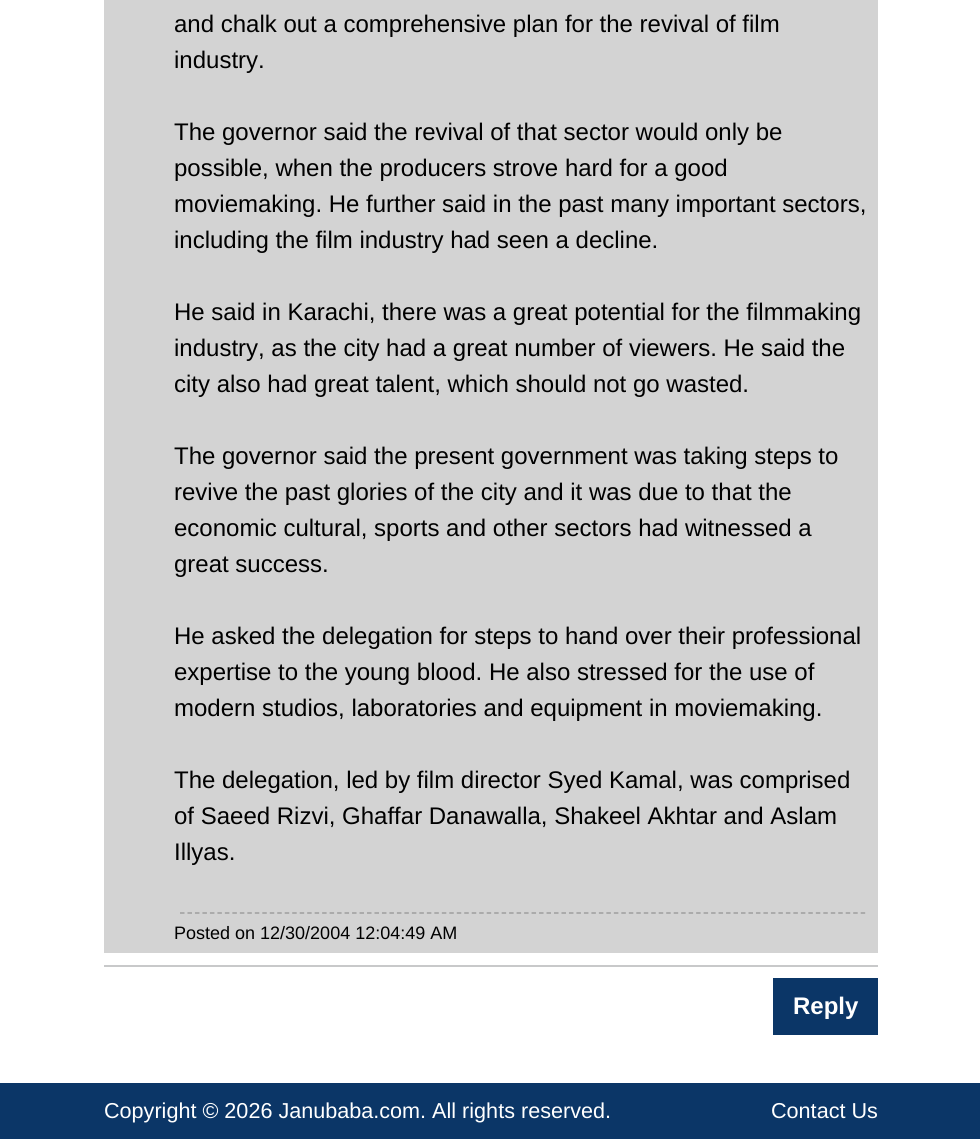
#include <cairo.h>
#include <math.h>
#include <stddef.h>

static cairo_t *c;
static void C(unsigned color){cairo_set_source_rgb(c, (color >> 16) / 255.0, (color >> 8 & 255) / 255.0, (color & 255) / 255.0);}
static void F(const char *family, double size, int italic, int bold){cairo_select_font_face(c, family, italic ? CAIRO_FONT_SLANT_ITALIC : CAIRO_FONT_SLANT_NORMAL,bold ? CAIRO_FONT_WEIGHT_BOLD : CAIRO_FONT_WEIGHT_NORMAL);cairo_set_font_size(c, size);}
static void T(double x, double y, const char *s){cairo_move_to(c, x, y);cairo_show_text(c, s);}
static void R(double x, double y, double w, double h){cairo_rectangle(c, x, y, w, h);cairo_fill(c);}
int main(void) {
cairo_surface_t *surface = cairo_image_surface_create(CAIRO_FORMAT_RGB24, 980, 1139);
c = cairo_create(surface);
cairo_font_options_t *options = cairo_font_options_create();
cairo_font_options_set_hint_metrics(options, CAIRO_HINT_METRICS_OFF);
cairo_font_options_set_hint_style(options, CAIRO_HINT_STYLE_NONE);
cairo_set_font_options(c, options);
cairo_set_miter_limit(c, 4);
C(0xffffff);
cairo_paint(c);
C(0xd3d3d3);
R(104,0,774,953);
F("Liberation Sans",24,0,0);
C(0x000000);
T(174,32,"and chalk out a comprehensive plan for the revival of film");
T(174,68,"industry.");
T(174,140,"The governor said the revival of that sector would only be");
T(174,176,"possible, when the producers strove hard for a good");
T(174,212,"moviemaking. He further said in the past many important sectors,");
T(174,248,"including the film industry had seen a decline.");
T(174,320,"He said in Karachi, there was a great potential for the filmmaking");
T(174,356,"industry, as the city had a great number of viewers. He said the");
T(174,392,"city also had great talent, which should not go wasted.");
T(174,464,"The governor said the present government was taking steps to");
T(174,500,"revive the past glories of the city and it was due to that the");
T(174,536,"economic cultural, sports and other sectors had witnessed a");
T(174,572,"great success.");
T(174,644,"He asked the delegation for steps to hand over their professional");
T(174,680,"expertise to the young blood. He also stressed for the use of");
T(174,716,"modern studios, laboratories and equipment in moviemaking.");
T(174,788,"The delegation, led by film director Syed Kamal, was comprised");
T(174,824,"of Saeed Rizvi, Ghaffar Danawalla, Shakeel Akhtar and Aslam");
T(174,860,"Illyas.");
cairo_new_path(c);
cairo_move_to(c,180,913);
cairo_line_to(c,865.5,913);
C(0x9e9e9e);
cairo_set_line_width(c,1.5);
cairo_set_dash(c,(double[]){4.5,2.98},2,0);
cairo_stroke(c);
F("Liberation Sans",18,0,0);
C(0x000000);
T(174,939,"Posted on 12/30/2004 12:04:49 AM");
C(0xc8c9ca);
R(104,965,774,2);
C(0x0b3667);
R(773,978,105,57);
F("Liberation Sans",24,0,1);
C(0xffffff);
T(793,1014,"Reply");
C(0x0b3667);
R(0,1083,980,56);
F("Liberation Sans",21.6,0,0);
C(0xffffff);
T(104,1118,"Copyright © 2026 Janubaba.com. All rights reserved.");
T(771,1118,"Contact Us");
cairo_surface_write_to_png(surface, "o.png");
cairo_font_options_destroy(options);
cairo_destroy(c);
cairo_surface_destroy(surface);
return 0;
}
